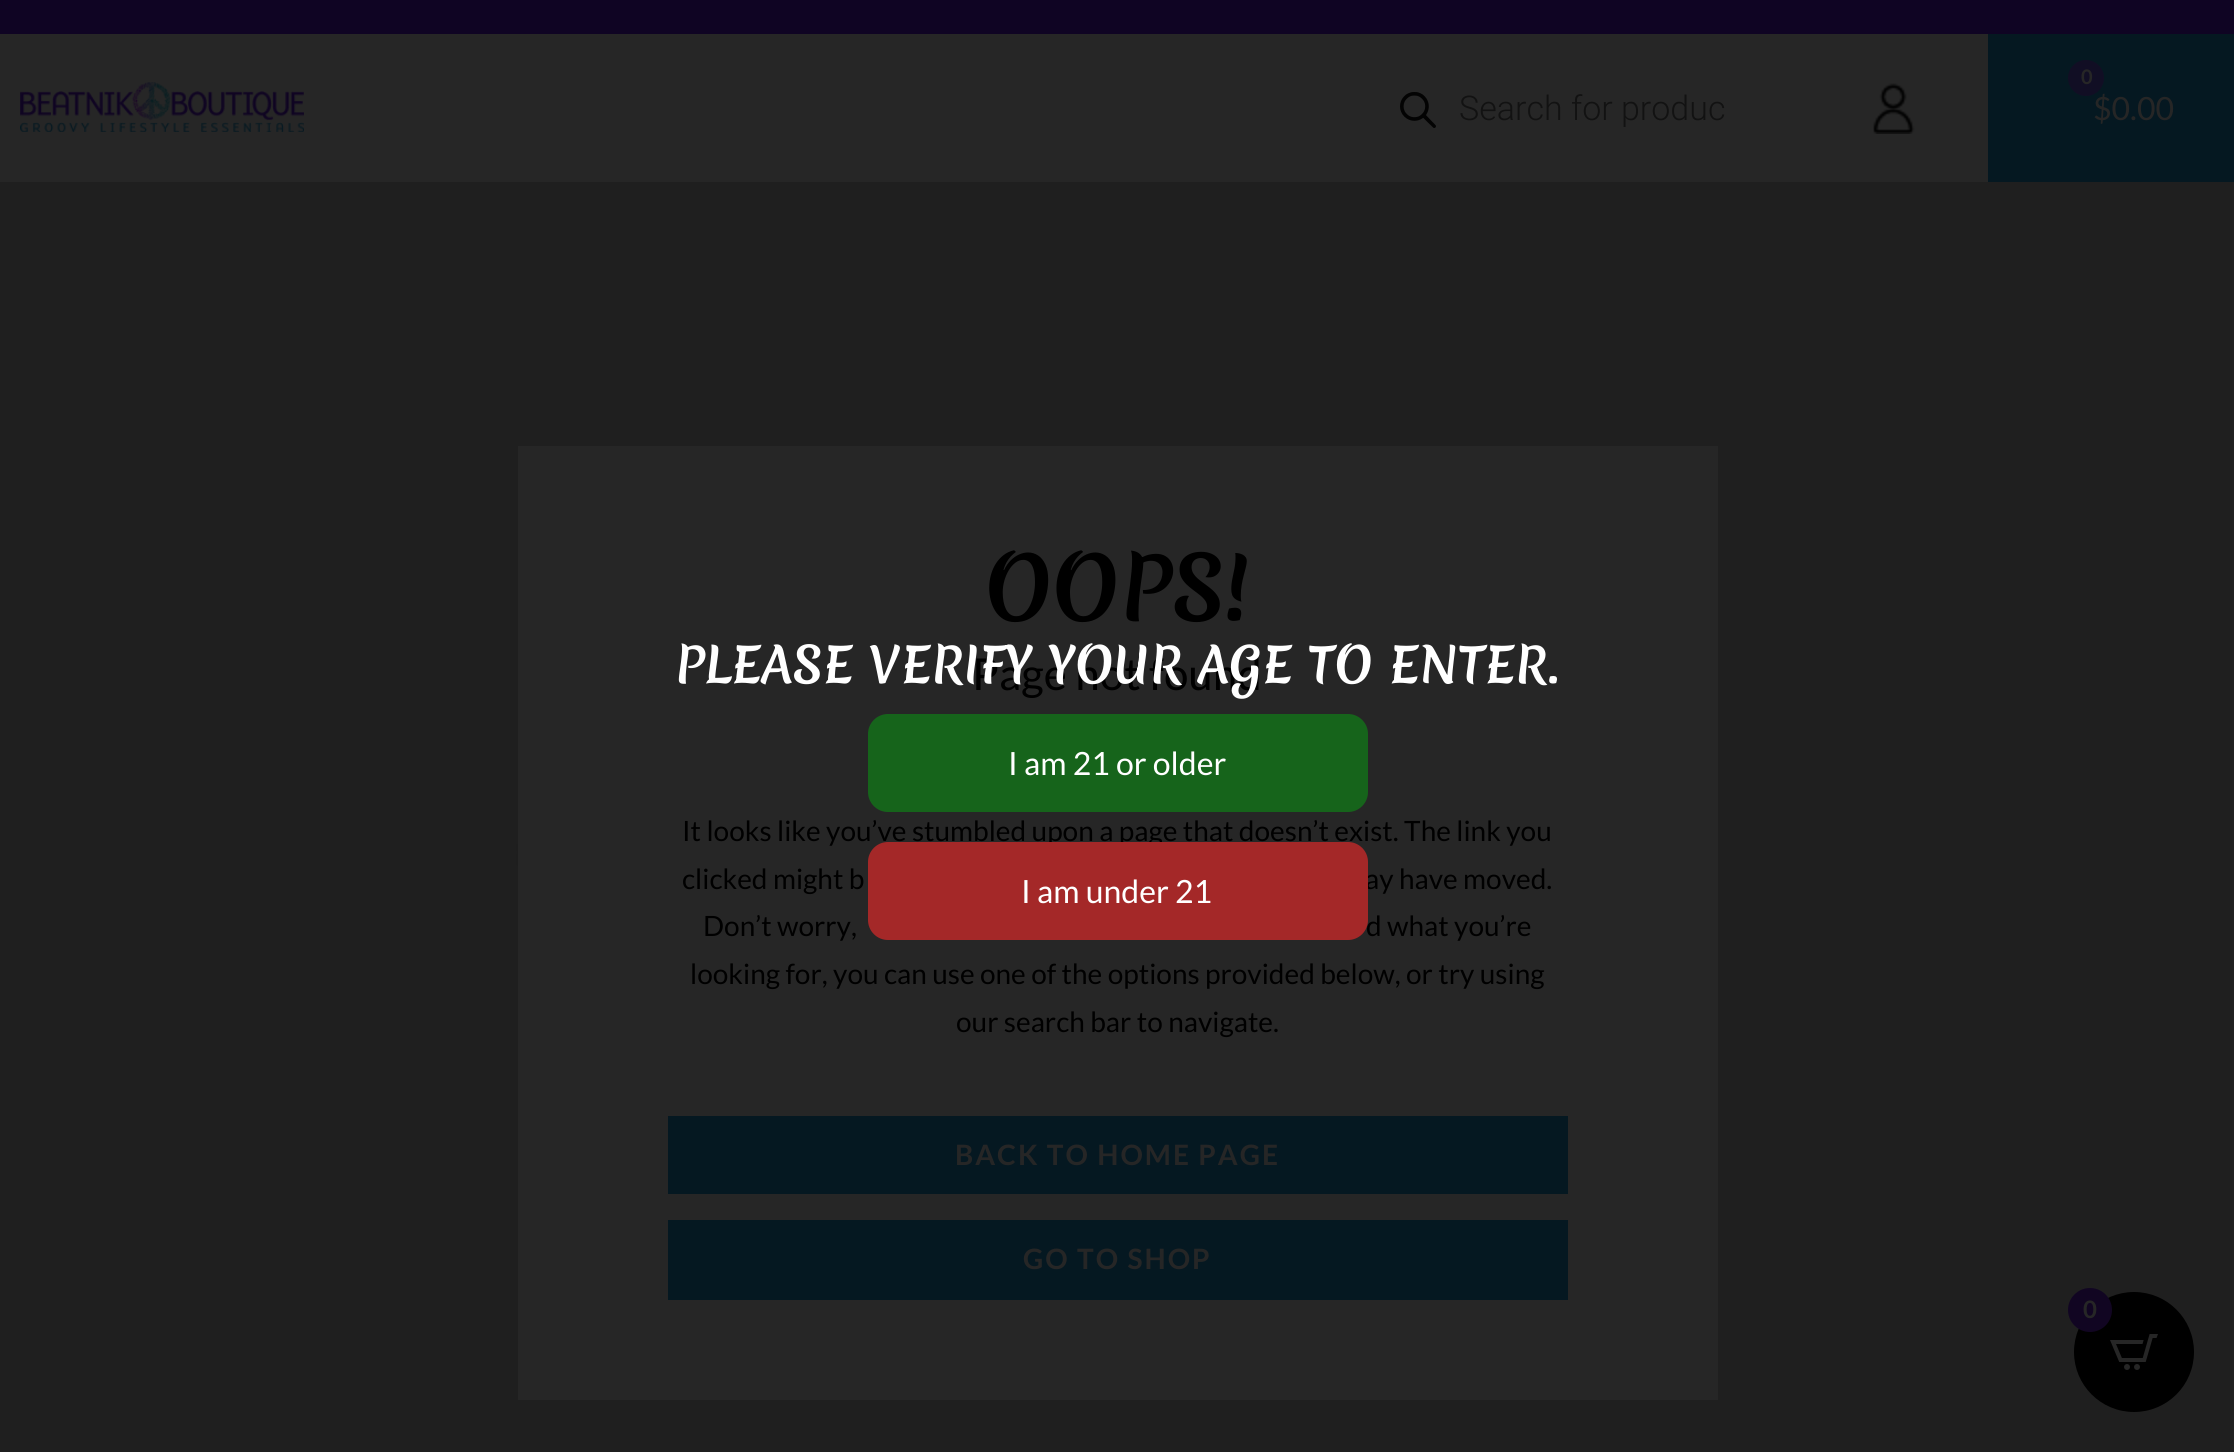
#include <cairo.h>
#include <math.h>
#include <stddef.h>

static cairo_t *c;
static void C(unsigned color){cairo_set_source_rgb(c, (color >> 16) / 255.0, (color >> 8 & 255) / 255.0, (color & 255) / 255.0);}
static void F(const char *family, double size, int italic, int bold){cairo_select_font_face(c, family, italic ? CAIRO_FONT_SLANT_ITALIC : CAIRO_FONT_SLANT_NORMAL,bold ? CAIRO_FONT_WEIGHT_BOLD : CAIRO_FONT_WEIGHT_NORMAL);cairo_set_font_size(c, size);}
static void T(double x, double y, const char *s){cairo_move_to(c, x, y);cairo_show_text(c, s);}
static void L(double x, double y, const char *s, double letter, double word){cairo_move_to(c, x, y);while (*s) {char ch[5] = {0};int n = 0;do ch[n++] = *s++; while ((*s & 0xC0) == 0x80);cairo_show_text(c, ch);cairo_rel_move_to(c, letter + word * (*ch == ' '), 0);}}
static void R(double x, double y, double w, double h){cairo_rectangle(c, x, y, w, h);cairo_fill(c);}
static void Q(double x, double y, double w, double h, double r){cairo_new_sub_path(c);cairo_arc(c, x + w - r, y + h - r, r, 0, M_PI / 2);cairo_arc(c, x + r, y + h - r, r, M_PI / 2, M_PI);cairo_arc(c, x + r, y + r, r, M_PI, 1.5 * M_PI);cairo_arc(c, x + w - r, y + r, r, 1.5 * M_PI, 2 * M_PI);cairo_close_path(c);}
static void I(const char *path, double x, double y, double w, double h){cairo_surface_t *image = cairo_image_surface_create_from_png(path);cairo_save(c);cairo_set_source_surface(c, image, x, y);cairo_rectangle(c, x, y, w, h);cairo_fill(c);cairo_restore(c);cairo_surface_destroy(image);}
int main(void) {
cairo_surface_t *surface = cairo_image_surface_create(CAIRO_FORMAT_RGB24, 2234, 1452);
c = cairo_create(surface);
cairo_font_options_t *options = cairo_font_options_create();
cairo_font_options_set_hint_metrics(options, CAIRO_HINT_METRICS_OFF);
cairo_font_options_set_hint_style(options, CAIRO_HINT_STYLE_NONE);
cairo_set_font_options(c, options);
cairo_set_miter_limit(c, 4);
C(0x262626);
cairo_paint(c);
C(0x0f0423);
R(0,0,2234,34);
I("1.png",20,82,284,50);
I("2.png",1400,92,36,36);
F("Roboto Light",34,0,0);
C(0x121212);
T(1459,120,"Search for produc");
I("3.png",1873,83,42,51);
C(0x051821);
R(1988,34,246,148);
F("Lato",32,0,0);
C(0x262626);
T(2093,120,"$0.00");
C(0x110e24);
cairo_new_path(c);
cairo_arc(c,2086,78,18,0,2 * M_PI);
cairo_fill(c);
F("Lato",20,0,1);
C(0x262626);
T(2081,84,"0");
I("4.png",0,182,2234,1270);
R(518,446,1200,954);
F("Merienda",84,0,1);
C(0x000000);
T(985,620,"OOPS!");
F("Lato",44,0,0);
T(972,690,"Page not found");
F("Lato",28,0,0);
T(682,841,"It looks like you’ve stumbled upon a page that doesn’t exist. The link you");
T(682,889,"clicked might b");
T(1365,889,"ay have moved.");
T(703,936,"Don’t worry,");
T(1366,936,"d what you’re");
T(690,984,"looking for, you can use one of the options provided below, or try using");
T(956,1032,"our search bar to navigate.");
C(0x051821);
R(668,1116,900,78);
F("Lato",28,0,1);
C(0x262626);
L(955,1165,"BACK TO HOME PAGE",2,0);
C(0x051821);
R(668,1220,900,80);
C(0x262626);
L(1023,1269,"GO TO SHOP",2,0);
F("Merienda",48,0,1);
C(0xffffff);
T(675,683,"PLEASE VERIFY YOUR AGE TO ENTER.");
C(0x16641b);
Q(868,714,500,98,20);
cairo_fill(c);
F("Lato",32,0,0);
C(0xffffff);
T(1008,775,"I am 21 or older");
C(0xa42828);
Q(868,842,500,98,20);
cairo_fill(c);
C(0xffffff);
T(1021,903,"I am under 21");
C(0x000000);
cairo_new_path(c);
cairo_arc(c,2134,1352,60,0,2 * M_PI);
cairo_fill(c);
C(0x110522);
cairo_arc(c,2090,1310,22,0,2 * M_PI);
cairo_fill(c);
F("Lato",24,0,1);
C(0x262626);
T(2083,1318,"0");
I("5.png",2110,1334,48,36);
cairo_surface_write_to_png(surface, "o.png");
cairo_font_options_destroy(options);
cairo_destroy(c);
cairo_surface_destroy(surface);
return 0;
}
